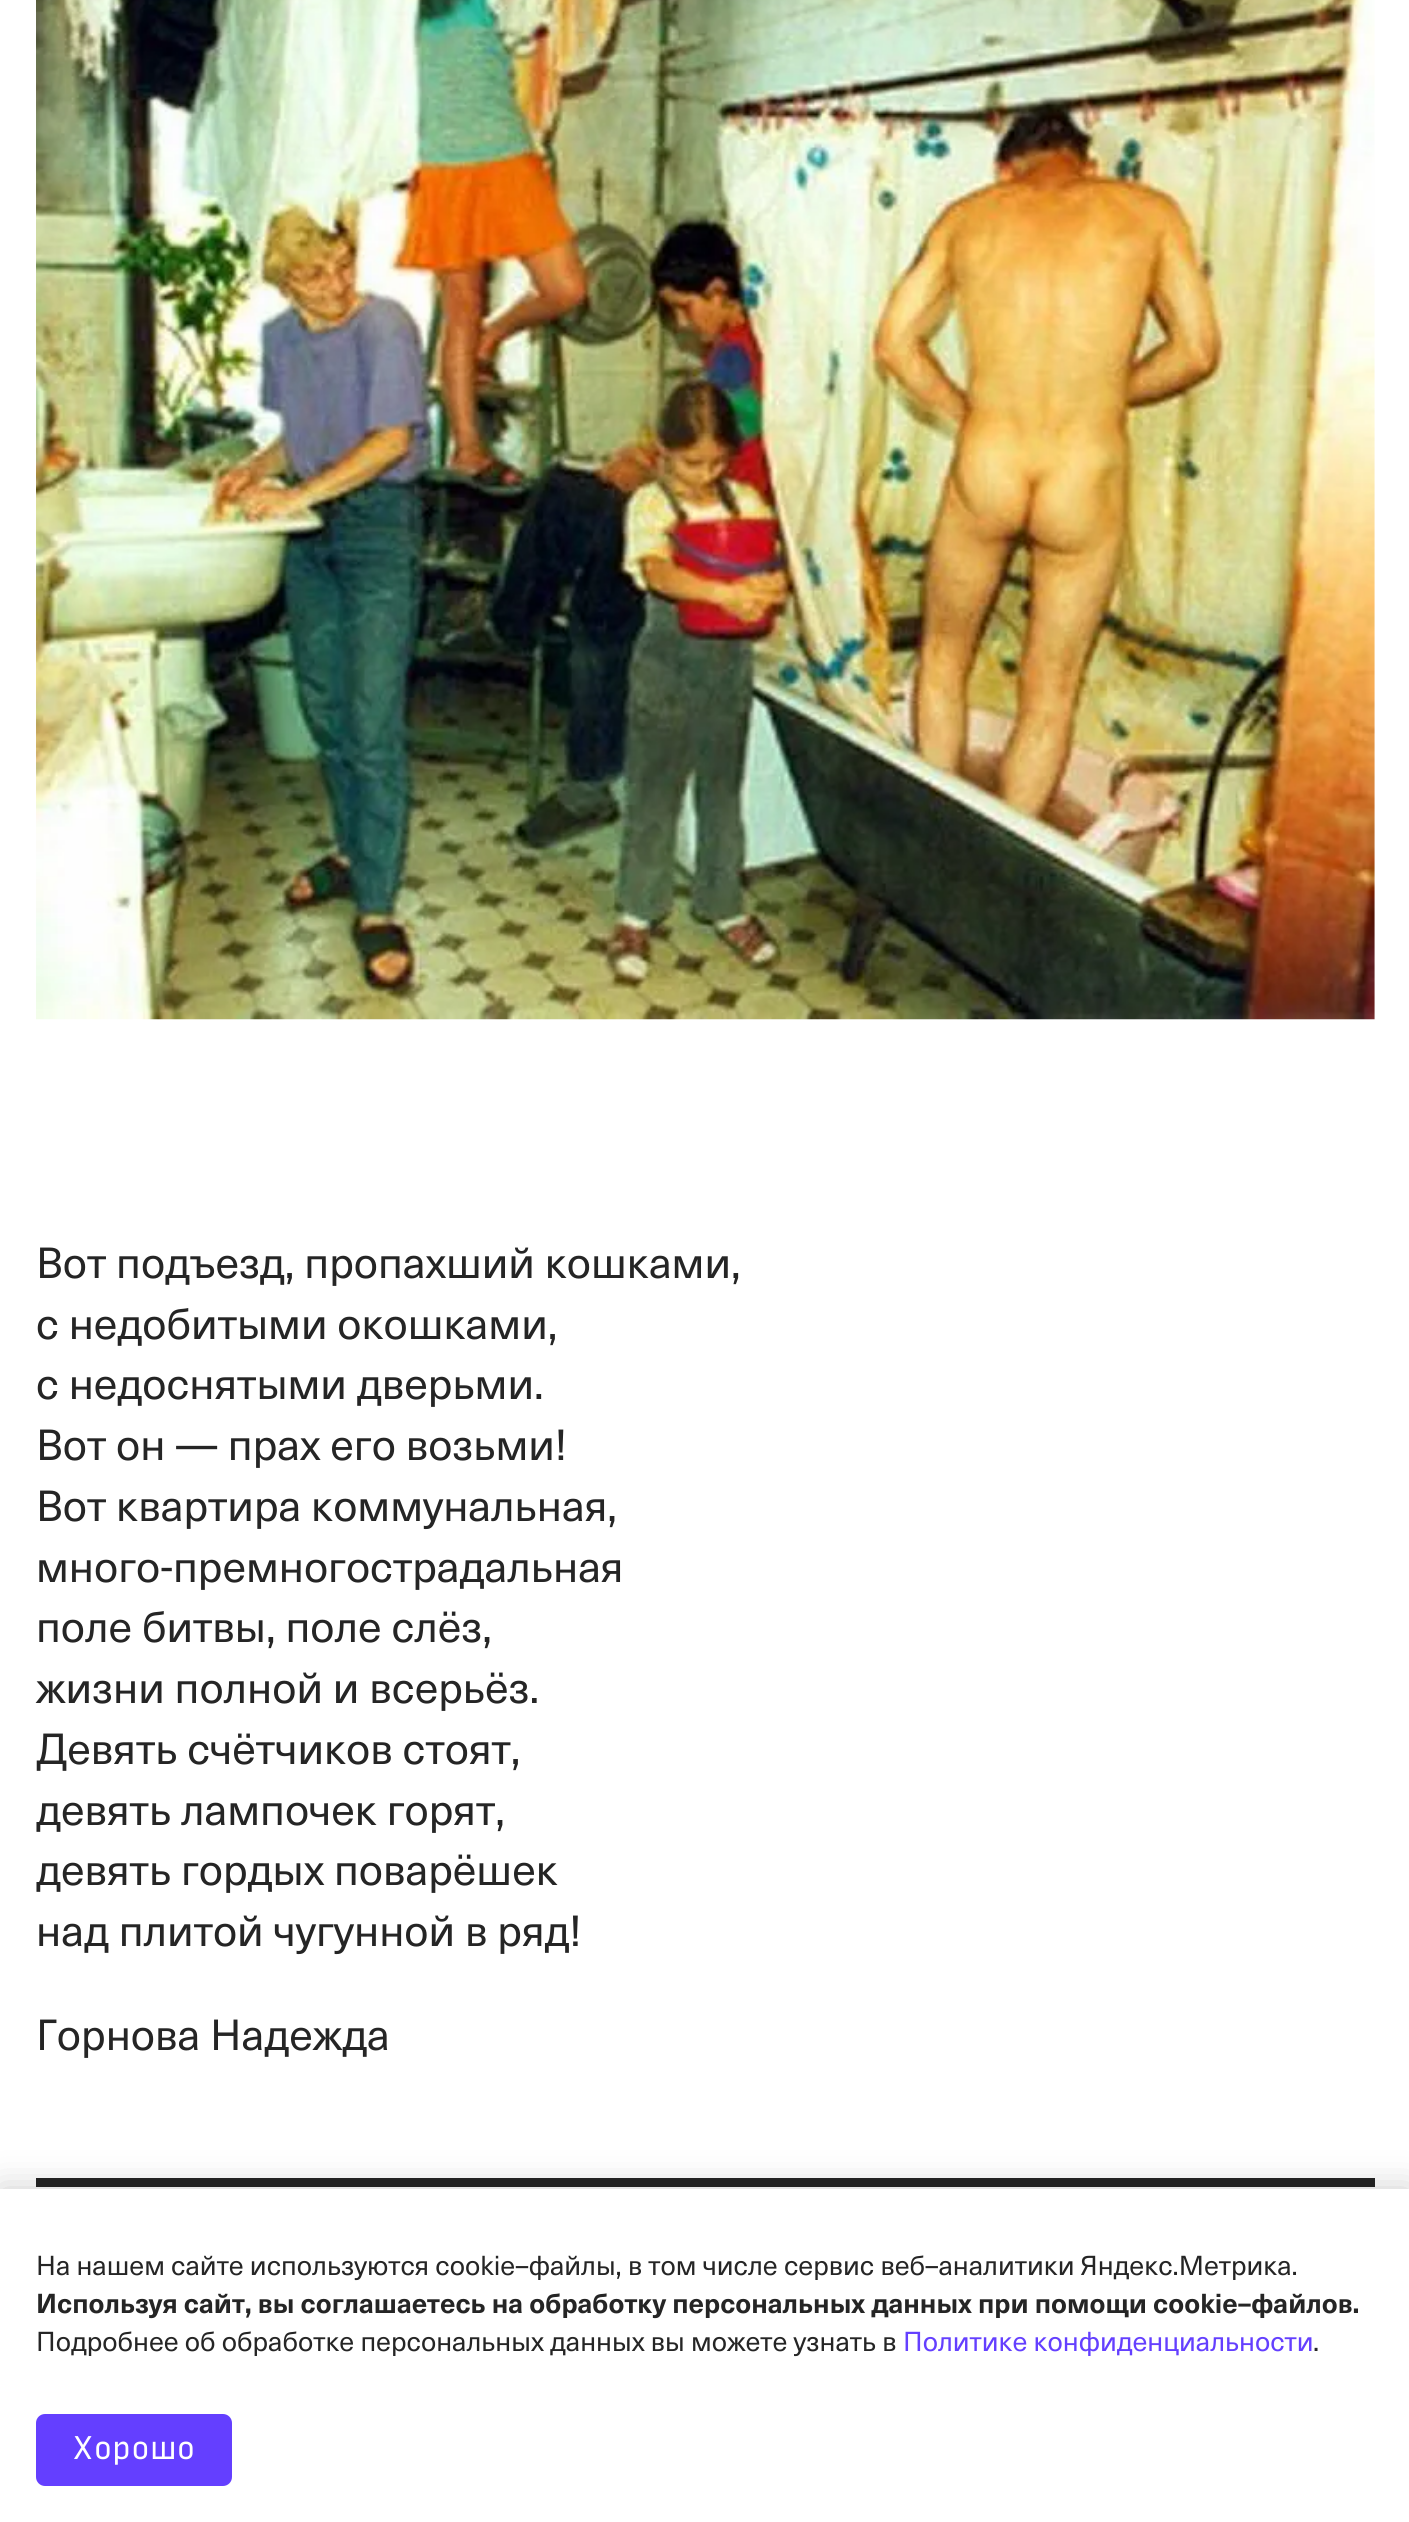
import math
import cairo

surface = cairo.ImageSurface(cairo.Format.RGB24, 1409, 2522)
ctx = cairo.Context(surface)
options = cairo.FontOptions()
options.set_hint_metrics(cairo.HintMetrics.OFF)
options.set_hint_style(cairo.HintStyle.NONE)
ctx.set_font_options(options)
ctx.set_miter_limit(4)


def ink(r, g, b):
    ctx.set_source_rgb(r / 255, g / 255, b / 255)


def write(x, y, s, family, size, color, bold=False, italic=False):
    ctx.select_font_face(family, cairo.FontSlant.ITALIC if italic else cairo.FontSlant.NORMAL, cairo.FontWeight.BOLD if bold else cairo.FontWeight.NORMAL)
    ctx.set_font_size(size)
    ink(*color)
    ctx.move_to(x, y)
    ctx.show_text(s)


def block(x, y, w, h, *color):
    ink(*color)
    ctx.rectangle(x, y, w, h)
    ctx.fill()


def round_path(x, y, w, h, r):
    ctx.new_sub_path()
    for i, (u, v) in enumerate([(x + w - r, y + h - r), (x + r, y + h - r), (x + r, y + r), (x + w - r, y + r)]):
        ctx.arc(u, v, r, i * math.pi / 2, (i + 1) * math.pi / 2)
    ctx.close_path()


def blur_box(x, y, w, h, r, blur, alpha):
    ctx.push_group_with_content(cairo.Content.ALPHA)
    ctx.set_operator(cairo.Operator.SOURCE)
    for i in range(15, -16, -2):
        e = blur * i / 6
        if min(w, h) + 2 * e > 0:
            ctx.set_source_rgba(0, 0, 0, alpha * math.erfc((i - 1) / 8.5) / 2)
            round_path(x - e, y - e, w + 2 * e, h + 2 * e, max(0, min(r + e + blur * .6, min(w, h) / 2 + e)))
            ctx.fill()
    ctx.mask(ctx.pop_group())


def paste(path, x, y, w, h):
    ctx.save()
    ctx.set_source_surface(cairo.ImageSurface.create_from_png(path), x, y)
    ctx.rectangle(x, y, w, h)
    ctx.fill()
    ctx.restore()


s1 = dict(family="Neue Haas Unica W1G", size=42.75, color=(37, 37, 37))
s2 = dict(family="Neue Haas Unica W1G", size=27, color=(37, 37, 37))
s3 = dict(family="Neue Haas Unica W1G", size=27, color=(37, 37, 37), bold=True)
s4 = dict(family="Neue Haas Unica W1G", size=27, color=(100, 63, 255))
s5 = dict(family="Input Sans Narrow", size=31.5, color=(255, 255, 255))

ink(255, 255, 255)
ctx.paint()
paste("pic1.png", 36, 0, 1339, 1020)
write(36, 1278, "Вот подъезд, пропахший кошками,", **s1)
write(36, 1339, "с недобитыми окошками,", **s1)
write(36, 1399, "с недоснятыми дверьми.", **s1)
write(36, 1460, "Вот он — прах его возьми!", **s1)
write(36, 1521, "Вот квартира коммунальная,", **s1)
write(36, 1582, "много-премногострадальная", **s1)
write(36, 1642, "поле битвы, поле слёз,", **s1)
write(36, 1703, "жизни полной и всерьёз.", **s1)
write(36, 1764, "Девять счётчиков стоят,", **s1)
write(36, 1825, "девять лампочек горят,", **s1)
write(36, 1885, "девять гордых поварёшек", **s1)
write(36, 1946, "над плитой чугунной в ряд!", **s1)
write(36, 2050, "Горнова Надежда", **s1)
block(36, 2178, 1339, 9, 37, 37, 37)
ink(0, 0, 0)
blur_box(0, 2189, 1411, 333, 0, 18, 0.2)
block(0, 2189, 1409, 333, 255, 255, 255)
write(36, 2275, "На нашем сайте используются cookie–файлы, в том числе сервис веб–аналитики Яндекс.Метрика.", **s2)
write(36, 2313, "Используя сайт, вы соглашаетесь на обработку персональных данных при помощи cookie–файлов.", **s3)
write(36, 2351, "Подробнее об обработке персональных данных вы можете узнать в", **s2)
write(903, 2351, "Политике конфиденциальности", **s4)
write(1313, 2351, ".", **s2)
ink(100, 63, 255)
round_path(36, 2414, 196, 72, 9)
ctx.fill()
write(72, 2459, "Хорошо", **s5)
surface.write_to_png("screenshot.png")
